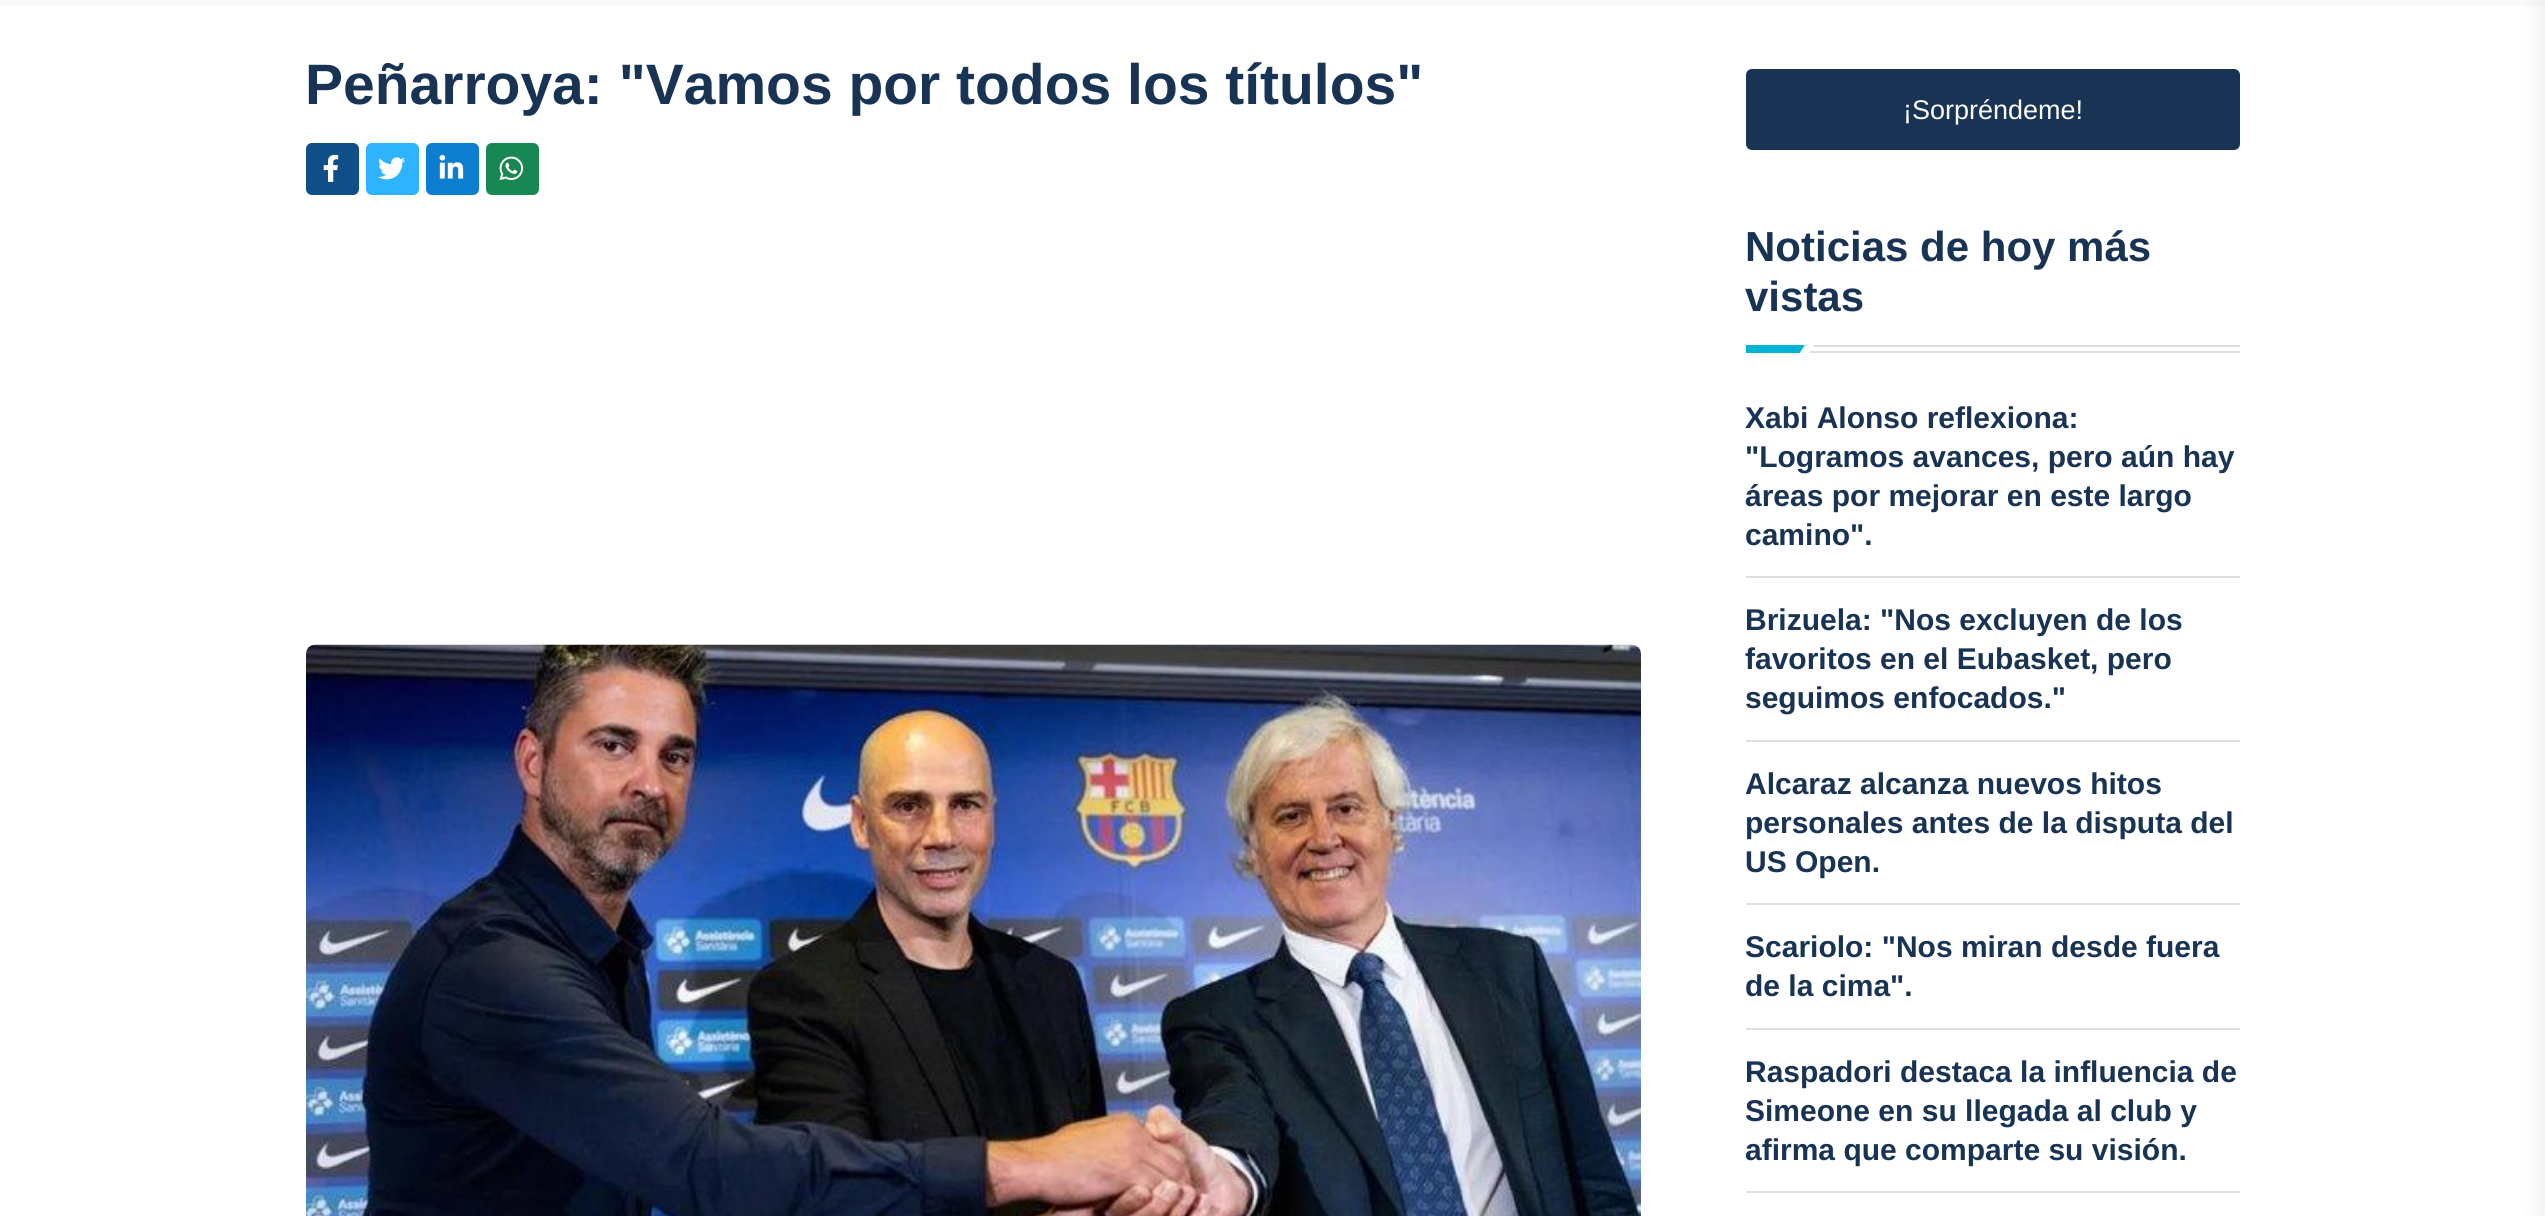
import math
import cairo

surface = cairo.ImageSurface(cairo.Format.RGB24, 2545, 1216)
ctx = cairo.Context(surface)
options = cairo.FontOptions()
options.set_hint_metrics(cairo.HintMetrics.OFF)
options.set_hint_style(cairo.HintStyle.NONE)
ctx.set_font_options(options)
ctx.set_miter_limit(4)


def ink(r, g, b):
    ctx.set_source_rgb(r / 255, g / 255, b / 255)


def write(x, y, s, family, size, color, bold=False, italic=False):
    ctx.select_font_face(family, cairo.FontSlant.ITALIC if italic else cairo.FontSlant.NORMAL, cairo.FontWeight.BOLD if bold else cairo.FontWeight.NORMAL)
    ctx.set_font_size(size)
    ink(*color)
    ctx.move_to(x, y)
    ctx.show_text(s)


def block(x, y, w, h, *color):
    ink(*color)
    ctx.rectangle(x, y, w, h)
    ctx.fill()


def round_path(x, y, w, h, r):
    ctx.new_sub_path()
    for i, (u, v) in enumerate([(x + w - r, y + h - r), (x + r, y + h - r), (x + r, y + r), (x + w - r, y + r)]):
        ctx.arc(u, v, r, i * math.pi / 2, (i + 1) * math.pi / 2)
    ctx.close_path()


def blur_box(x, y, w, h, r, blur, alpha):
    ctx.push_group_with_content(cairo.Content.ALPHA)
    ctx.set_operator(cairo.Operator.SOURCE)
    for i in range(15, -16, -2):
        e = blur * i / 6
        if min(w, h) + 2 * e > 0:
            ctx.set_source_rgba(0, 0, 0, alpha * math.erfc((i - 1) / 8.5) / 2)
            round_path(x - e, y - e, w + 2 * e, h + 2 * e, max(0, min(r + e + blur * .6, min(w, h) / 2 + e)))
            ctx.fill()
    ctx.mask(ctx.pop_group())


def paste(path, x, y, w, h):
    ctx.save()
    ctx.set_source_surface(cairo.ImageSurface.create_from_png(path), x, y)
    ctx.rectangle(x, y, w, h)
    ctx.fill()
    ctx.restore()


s1 = dict(family="Liberation Sans", size=57, color=(24, 51, 84), bold=True)
s2 = dict(family="Liberation Sans", size=27, color=(255, 255, 255))
s3 = dict(family="Liberation Sans", size=42, color=(24, 51, 84), bold=True)
s4 = dict(family="Liberation Sans", size=30, color=(24, 51, 84), bold=True)

ink(255, 255, 255)
ctx.paint()
block(0, 0, 2545, 6, 249, 249, 247)
write(305, 104, "Peñarroya: \"Vamos por todos los títulos\"", **s1)
ink(16, 78, 135)
round_path(306, 143, 53, 52, 6)
ctx.fill()
paste("pic1.png", 323, 154, 16, 28)
ink(46, 180, 255)
round_path(366, 143, 53, 52, 6)
ctx.fill()
paste("pic2.png", 378, 157, 27, 23)
ink(12, 126, 208)
round_path(426, 143, 53, 52, 6)
ctx.fill()
paste("pic3.png", 439, 154, 25, 25)
ink(25, 135, 84)
round_path(486, 143, 53, 52, 6)
ctx.fill()
paste("pic4.png", 499, 156, 25, 25)
paste("pic5.png", 306, 644, 1335, 572)
ink(24, 51, 84)
round_path(1746, 69, 494, 81, 6)
ctx.fill()
write(1903, 119, "¡Sorpréndeme!", **s2)
write(1745, 261, "Noticias de hoy más", **s3)
write(1745, 311, "vistas", **s3)
block(1812, 345, 428, 2, 223, 223, 223)
block(1808, 351, 432, 2, 223, 223, 223)
block(1746, 345, 60, 8, 0, 180, 216)
ink(255, 255, 255)
ctx.new_path()
ctx.move_to(1800, 352.5)
ctx.line_to(1805, 345)
ctx.line_to(1814, 345)
ctx.line_to(1808.5, 353.5)
ctx.line_to(1800, 353.5)
ctx.close_path()
ctx.fill()
block(1746, 576, 494, 2, 223, 223, 223)
write(1745, 428, "Xabi Alonso reflexiona:", **s4)
write(1745, 467, "\"Logramos avances, pero aún hay", **s4)
write(1745, 506, "áreas por mejorar en este largo", **s4)
write(1745, 545, "camino\".", **s4)
block(1746, 740, 494, 2, 223, 223, 223)
write(1745, 630, "Brizuela: \"Nos excluyen de los", **s4)
write(1745, 669, "favoritos en el Eubasket, pero", **s4)
write(1745, 708, "seguimos enfocados.\"", **s4)
block(1746, 903, 494, 2, 223, 223, 223)
write(1745, 794, "Alcaraz alcanza nuevos hitos", **s4)
write(1745, 833, "personales antes de la disputa del", **s4)
write(1745, 872, "US Open.", **s4)
block(1746, 1028, 494, 2, 223, 223, 223)
write(1745, 957, "Scariolo: \"Nos miran desde fuera", **s4)
write(1745, 996, "de la cima\".", **s4)
block(1746, 1191, 494, 2, 223, 223, 223)
write(1745, 1082, "Raspadori destaca la influencia de", **s4)
write(1745, 1121, "Simeone en su llegada al club y", **s4)
write(1745, 1160, "afirma que comparte su visión.", **s4)
ink(0, 0, 0)
blur_box(2537, 0, 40, 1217, 0, 10.5, 0.06)
surface.write_to_png("screenshot.png")
